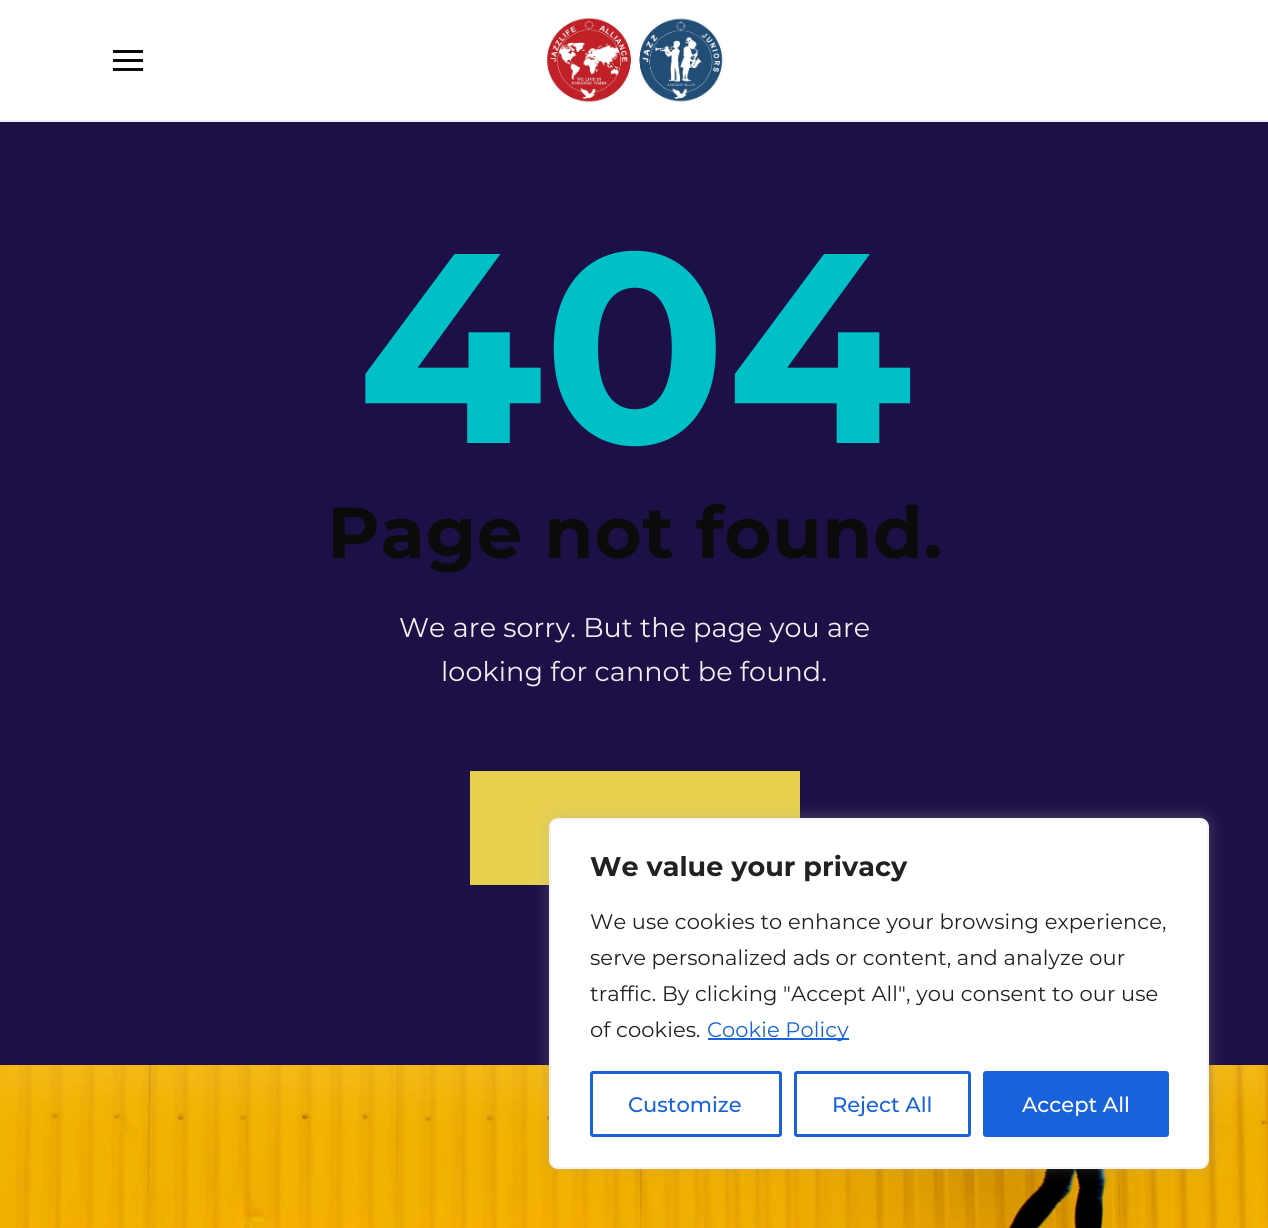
import math
import cairo

surface = cairo.ImageSurface(cairo.Format.RGB24, 1268, 1228)
ctx = cairo.Context(surface)
options = cairo.FontOptions()
options.set_hint_metrics(cairo.HintMetrics.OFF)
options.set_hint_style(cairo.HintStyle.NONE)
ctx.set_font_options(options)
ctx.set_miter_limit(4)


def ink(r, g, b):
    ctx.set_source_rgb(r / 255, g / 255, b / 255)


def write(x, y, s, family, size, color, bold=False, italic=False):
    ctx.select_font_face(family, cairo.FontSlant.ITALIC if italic else cairo.FontSlant.NORMAL, cairo.FontWeight.BOLD if bold else cairo.FontWeight.NORMAL)
    ctx.set_font_size(size)
    ink(*color)
    ctx.move_to(x, y)
    ctx.show_text(s)


def write_spaced(x, y, s, letter, word):
    ctx.move_to(x, y)
    for ch in s:
        ctx.show_text(ch)
        ctx.rel_move_to(letter + word * (ch == ' '), 0)


def block(x, y, w, h, *color):
    ink(*color)
    ctx.rectangle(x, y, w, h)
    ctx.fill()


def round_path(x, y, w, h, r):
    ctx.new_sub_path()
    for i, (u, v) in enumerate([(x + w - r, y + h - r), (x + r, y + h - r), (x + r, y + r), (x + w - r, y + r)]):
        ctx.arc(u, v, r, i * math.pi / 2, (i + 1) * math.pi / 2)
    ctx.close_path()


def blur_box(x, y, w, h, r, blur, alpha):
    ctx.push_group_with_content(cairo.Content.ALPHA)
    ctx.set_operator(cairo.Operator.SOURCE)
    for i in range(15, -16, -2):
        e = blur * i / 6
        if min(w, h) + 2 * e > 0:
            ctx.set_source_rgba(0, 0, 0, alpha * math.erfc((i - 1) / 8.5) / 2)
            round_path(x - e, y - e, w + 2 * e, h + 2 * e, max(0, min(r + e + blur * .6, min(w, h) / 2 + e)))
            ctx.fill()
    ctx.mask(ctx.pop_group())


def paste(path, x, y, w, h):
    ctx.save()
    ctx.set_source_surface(cairo.ImageSurface.create_from_png(path), x, y)
    ctx.rectangle(x, y, w, h)
    ctx.fill()
    ctx.restore()


s1 = dict(family="Montserrat Medium", size=21, color=(24, 99, 220))
s2 = dict(family="Montserrat Medium", size=21, color=(255, 255, 255))

ink(255, 255, 255)
ctx.paint()
paste("pic2.png", 0, 1065, 1268, 163)
blur_box(0, 23, 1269, 1065, 0, 22.5, 0.1)
block(0, 122, 1268, 943, 29, 16, 70)
block(0, 120, 1268, 2, 237, 237, 237)
block(113, 50, 30, 3, 10, 10, 10)
block(113, 59, 30, 3, 10, 10, 10)
block(113, 68, 30, 3, 10, 10, 10)
paste("pic1.png", 545, 17, 179, 86)
ctx.select_font_face("Montserrat", cairo.FontSlant.NORMAL, cairo.FontWeight.BOLD)
ctx.set_font_size(270)
ink(0, 192, 199)
write_spaced(357, 443, "404", 0.1, 0)
ctx.set_font_size(72)
ink(11, 11, 11)
write_spaced(327, 558, "Page not found.", 0.75, 0)
ctx.select_font_face("Montserrat")
ctx.set_font_size(27)
ink(239, 239, 239)
write_spaced(399, 637, "We are sorry. But the page you are", 0.1, 0)
write_spaced(441, 681, "looking for cannot be found.", 0.1, 0)
block(470, 771, 330, 114, 232, 209, 79)
ink(172, 171, 171)
blur_box(549, 816, 660, 351, 9, 7.5, 0.3)
ink(255, 255, 255)
round_path(550, 819, 658, 349, 8)
ctx.fill_preserve()
ink(244, 244, 244)
ctx.stroke()
ctx.select_font_face("Montserrat", cairo.FontSlant.NORMAL, cairo.FontWeight.BOLD)
ink(33, 33, 33)
write_spaced(590, 876, "We value your privacy", 0.1, 0)
ctx.select_font_face("Montserrat")
ctx.set_font_size(21)
write_spaced(590, 929, "We use cookies to enhance your browsing experience,", 0.1, 0)
write_spaced(590, 965, "serve personalized ads or content, and analyze our", 0.1, 0)
write_spaced(590, 1001, "traffic. By clicking \"Accept All\", you consent to our use", 0.1, 0)
write_spaced(590, 1037, "of cookies.", 0.1, 0)
block(708, 1038, 141, 2, 24, 99, 220)
write_spaced(707, 1037, "Cookie Policy", 0.1, 0)
round_path(591.5, 1072.5, 189, 63, 1.5)
ctx.set_line_width(3)
ctx.stroke()
write(628, 1112, "Customize", **s1)
round_path(795.5, 1072.5, 174, 63, 1.5)
ctx.stroke()
write(832, 1112, "Reject All", **s1)
round_path(984.5, 1072.5, 183, 63, 1.5)
ctx.fill_preserve()
ctx.stroke()
write(1022, 1112, "Accept All", **s2)
surface.write_to_png("screenshot.png")
